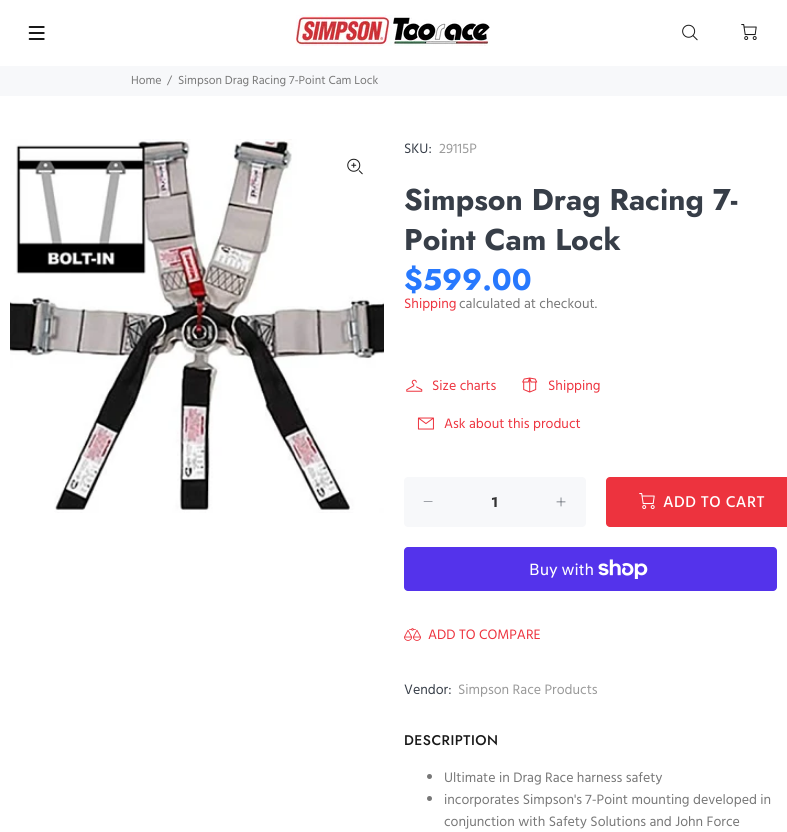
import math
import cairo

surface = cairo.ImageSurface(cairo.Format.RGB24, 787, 832)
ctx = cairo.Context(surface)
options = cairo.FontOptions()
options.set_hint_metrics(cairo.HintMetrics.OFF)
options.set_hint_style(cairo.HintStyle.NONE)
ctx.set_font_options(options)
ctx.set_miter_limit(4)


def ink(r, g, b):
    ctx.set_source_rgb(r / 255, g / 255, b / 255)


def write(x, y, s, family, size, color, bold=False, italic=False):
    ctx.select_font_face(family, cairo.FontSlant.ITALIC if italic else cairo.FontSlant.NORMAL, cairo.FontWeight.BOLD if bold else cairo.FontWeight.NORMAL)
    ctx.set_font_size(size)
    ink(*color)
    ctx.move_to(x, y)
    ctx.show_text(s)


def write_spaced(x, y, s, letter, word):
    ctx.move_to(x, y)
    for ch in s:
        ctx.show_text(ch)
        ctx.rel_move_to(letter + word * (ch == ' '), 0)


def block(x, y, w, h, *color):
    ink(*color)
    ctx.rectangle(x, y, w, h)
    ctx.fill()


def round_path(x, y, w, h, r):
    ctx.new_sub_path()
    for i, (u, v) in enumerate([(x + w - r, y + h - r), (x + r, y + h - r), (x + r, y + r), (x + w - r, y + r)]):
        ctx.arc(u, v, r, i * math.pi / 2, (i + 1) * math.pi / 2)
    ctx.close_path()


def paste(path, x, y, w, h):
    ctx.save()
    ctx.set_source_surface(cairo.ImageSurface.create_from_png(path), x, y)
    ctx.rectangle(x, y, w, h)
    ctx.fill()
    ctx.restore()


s1 = dict(family="Hind", size=12, color=(119, 119, 119))
s2 = dict(family="Hind", size=14, color=(55, 62, 72))
s3 = dict(family="Hind", size=14, color=(153, 153, 153))
s4 = dict(family="Jost", size=30, color=(55, 62, 72), bold=True)
s5 = dict(family="Jost", size=30, color=(40, 121, 254), bold=True)
s6 = dict(family="Hind", size=14, color=(237, 51, 62))
s7 = dict(family="Hind", size=14, color=(119, 119, 119))
s8 = dict(family="Jost", size=14, color=(51, 51, 51), bold=True)
s9 = dict(family="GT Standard", size=16, color=(255, 255, 255))

ink(255, 255, 255)
ctx.paint()
paste("pic1.png", 28, 26, 17, 14)
paste("pic2.png", 296, 15, 194, 31)
paste("pic3.png", 682, 24, 16, 17)
paste("pic4.png", 741, 24, 16, 16)
block(0, 66, 787, 30, 247, 248, 250)
write(131, 84, "Home", **s1)
write(167, 84, "/", **s1)
write(178, 84, "Simpson Drag Racing 7-Point Cam Lock", **s1)
paste("pic5.png", 10, 139, 374, 374)
paste("pic6.png", 347, 158, 16, 17)
write(404, 153, "SKU:", **s2)
write(439, 153, "29115P", **s3)
write(404, 210, "Simpson Drag Racing 7-", **s4)
write(404, 250, "Point Cam Lock", **s4)
write(404, 290, "$599.00", **s5)
write(404, 308, "Shipping", **s6)
write(459, 308, "calculated at checkout.", **s7)
paste("pic7.png", 406, 379, 17, 13)
write(432, 390, "Size charts", **s6)
paste("pic8.png", 522, 377, 16, 16)
write(548, 390, "Shipping", **s6)
paste("pic9.png", 417, 417, 17, 13)
write(444, 428, "Ask about this product", **s6)
ink(247, 248, 250)
round_path(404, 477, 182, 50, 4)
ctx.fill()
ink(55, 62, 72)
ctx.new_path()
ctx.move_to(432.5, 501.5)
ctx.line_to(432.5, 502)
ctx.line_to(423.5, 502)
ctx.line_to(424, 501.5)
ctx.close_path()
ctx.fill()
write(491, 507, "1", **s8)
paste("pic10.png", 556, 497, 10, 10)
ink(237, 51, 62)
round_path(606, 477, 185, 50, 4)
ctx.fill()
paste("pic11.png", 639, 493, 16, 16)
ctx.select_font_face("Hind Medium")
ctx.set_font_size(16)
ink(255, 255, 255)
write_spaced(663, 507, "ADD TO CART", 0.5, 0)
ink(84, 51, 235)
round_path(404, 547, 373, 44, 4)
ctx.fill()
write(529, 575, "Buy with", **s9)
paste("pic12.png", 598, 559, 50, 20)
paste("pic13.png", 404, 628, 17, 13)
write(428, 639, "ADD TO COMPARE", **s6)
write(404, 694, "Vendor:", **s2)
write(458, 694, "Simpson Race Products", **s3)
ctx.select_font_face("Jost Medium")
ink(25, 25, 25)
write_spaced(404, 745, "DESCRIPTION", 0.5, 0)
ink(119, 119, 119)
ctx.new_path()
ctx.arc(429.5, 776.5, 2.5, 0, 2 * math.pi)
ctx.fill()
write(444, 782, "Ultimate in Drag Race harness safety", **s7)
ctx.new_path()
ctx.arc(429.5, 798.5, 2.5, 0, 2 * math.pi)
ctx.fill()
write(444, 804, "incorporates Simpson's 7-Point mounting developed in", **s7)
write(444, 826, "conjunction with Safety Solutions and John Force", **s7)
surface.write_to_png("screenshot.png")
